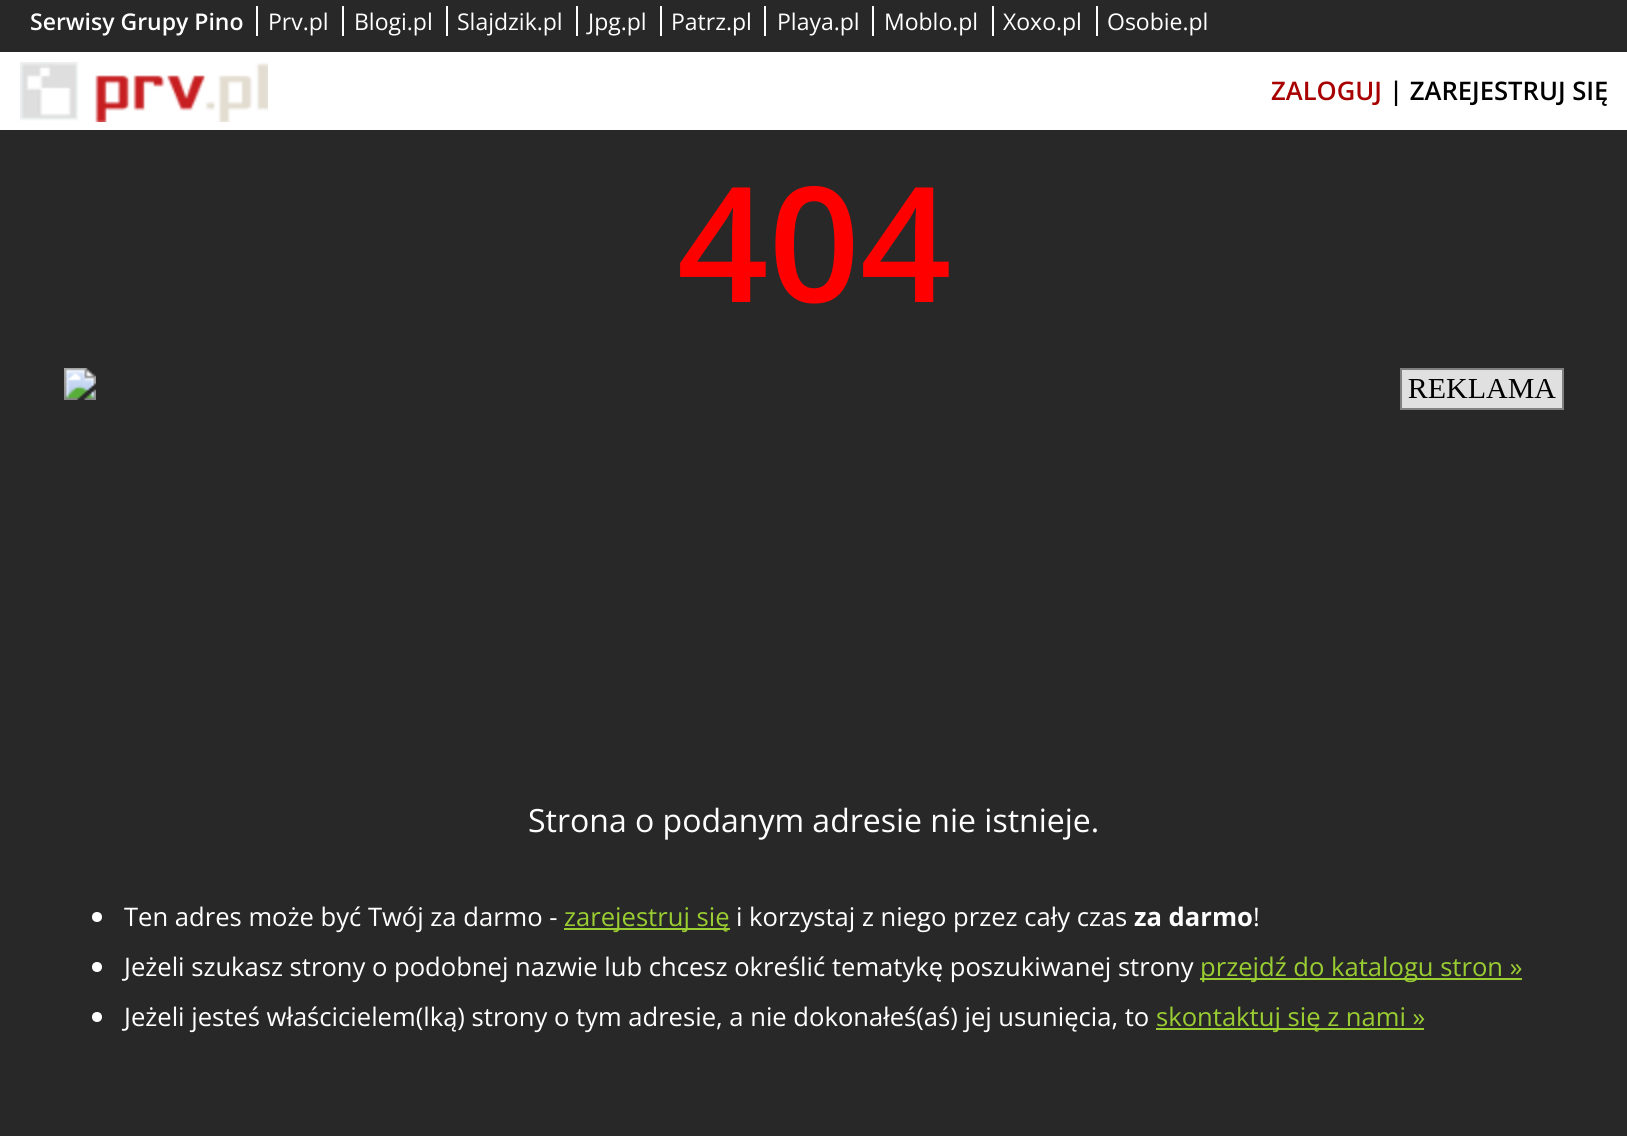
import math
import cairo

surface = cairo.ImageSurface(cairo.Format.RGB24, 1627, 1145)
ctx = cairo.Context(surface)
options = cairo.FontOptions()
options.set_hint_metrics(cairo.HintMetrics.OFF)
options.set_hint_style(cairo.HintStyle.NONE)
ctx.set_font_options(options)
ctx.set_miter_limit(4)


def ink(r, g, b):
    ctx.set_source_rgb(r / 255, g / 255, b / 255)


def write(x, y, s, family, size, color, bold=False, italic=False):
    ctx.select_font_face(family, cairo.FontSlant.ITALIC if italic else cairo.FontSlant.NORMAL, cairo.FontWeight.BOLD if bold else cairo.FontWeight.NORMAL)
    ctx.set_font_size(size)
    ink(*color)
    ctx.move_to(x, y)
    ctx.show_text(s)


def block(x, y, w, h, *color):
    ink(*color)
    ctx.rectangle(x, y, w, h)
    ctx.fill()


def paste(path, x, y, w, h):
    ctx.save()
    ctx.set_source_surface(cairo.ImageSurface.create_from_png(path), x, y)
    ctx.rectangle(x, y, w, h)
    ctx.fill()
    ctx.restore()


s1 = dict(family="Open Sans SemiBold", size=23, color=(255, 255, 255))
s2 = dict(family="Open Sans", size=23, color=(255, 255, 255))
s3 = dict(family="Open Sans SemiBold", size=25.6, color=(168, 0, 0))
s4 = dict(family="Open Sans SemiBold", size=25.6, color=(0, 0, 0))
s5 = dict(family="Open Sans SemiBold", size=160, color=(255, 0, 0))
s6 = dict(family="Open Sans", size=32, color=(255, 255, 255))
s7 = dict(family="Open Sans", size=25.6, color=(255, 255, 255))
s8 = dict(family="Open Sans", size=25.6, color=(154, 205, 50))
s9 = dict(family="Open Sans", size=25.6, color=(255, 255, 255), bold=True)

ink(255, 255, 255)
ctx.paint()
block(0, 0, 1627, 52, 40, 40, 40)
write(30, 30, "Serwisy Grupy Pino", **s1)
block(256, 6, 2, 30, 255, 255, 255)
write(268, 30, "Prv.pl", **s2)
block(342, 6, 2, 30, 255, 255, 255)
write(354, 30, "Blogi.pl", **s2)
block(446, 6, 2, 30, 255, 255, 255)
write(457, 30, "Slajdzik.pl", **s2)
block(576, 6, 2, 30, 255, 255, 255)
write(588, 30, "Jpg.pl", **s2)
block(660, 6, 2, 30, 255, 255, 255)
write(671, 30, "Patrz.pl", **s2)
block(764, 6, 2, 30, 255, 255, 255)
write(777, 30, "Playa.pl", **s2)
block(872, 6, 2, 30, 255, 255, 255)
write(884, 30, "Moblo.pl", **s2)
block(992, 6, 2, 30, 255, 255, 255)
write(1003, 30, "Xoxo.pl", **s2)
block(1096, 6, 2, 30, 255, 255, 255)
write(1107, 30, "Osobie.pl", **s2)
paste("pic1.png", 20, 62, 248, 60)
write(1271, 100, "ZALOGUJ", **s3)
write(1389, 100, "| ZAREJESTRUJ SIĘ", **s4)
block(0, 130, 1627, 1006, 40, 40, 40)
write(677, 302, "404", **s5)
paste("pic2.png", 64, 368, 1500, 42)
write(528, 832, "Strona o podanym adresie nie istnieje.", **s6)
ctx.new_path()
ctx.arc(97, 917, 5, 0, 2 * math.pi)
ctx.fill()
write(124, 926, "Ten adres może być Twój za darmo -", **s7)
block(564, 928, 166, 2, 154, 205, 50)
write(564, 926, "zarejestruj się", **s8)
write(736, 926, "i korzystaj z niego przez cały czas", **s7)
write(1134, 926, "za darmo", **s9)
write(1253, 926, "!", **s7)
ctx.new_path()
ctx.arc(97, 967, 5, 0, 2 * math.pi)
ctx.fill()
write(124, 976, "Jeżeli szukasz strony o podobnej nazwie lub chcesz określić tematykę poszukiwanej strony", **s7)
block(1200, 978, 322, 2, 154, 205, 50)
write(1200, 976, "przejdź do katalogu stron »", **s8)
ink(255, 255, 255)
ctx.new_path()
ctx.arc(97, 1017, 5, 0, 2 * math.pi)
ctx.fill()
write(124, 1026, "Jeżeli jesteś właścicielem(lką) strony o tym adresie, a nie dokonałeś(aś) jej usunięcia, to", **s7)
block(1156, 1028, 268, 2, 154, 205, 50)
write(1156, 1026, "skontaktuj się z nami »", **s8)
surface.write_to_png("screenshot.png")
